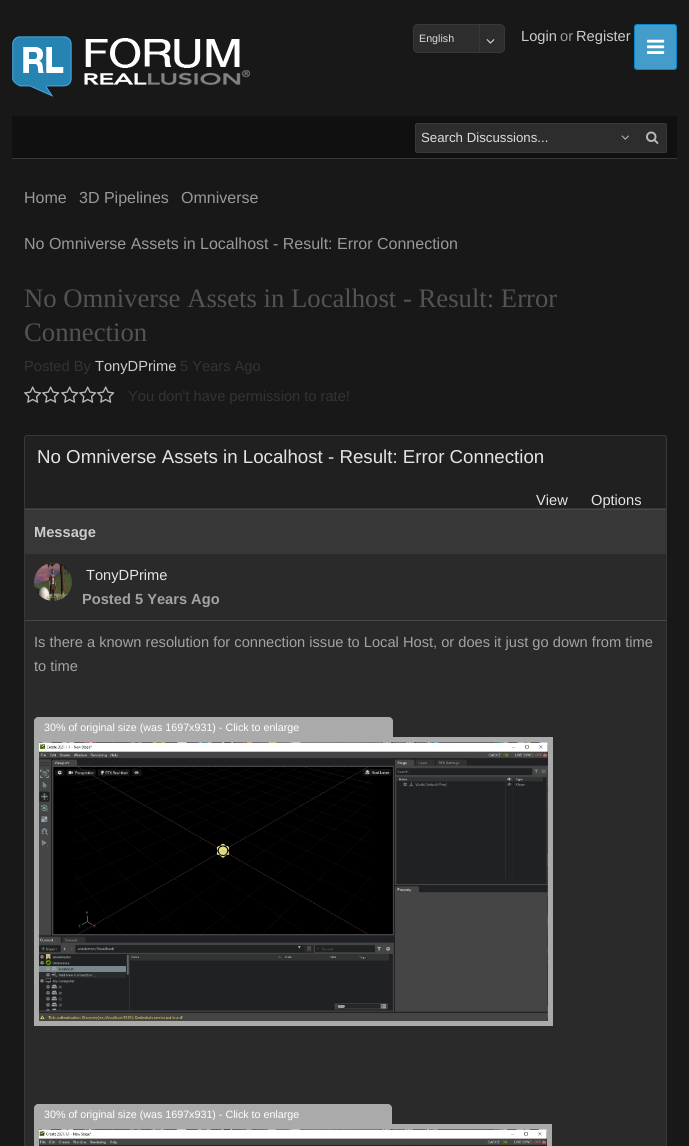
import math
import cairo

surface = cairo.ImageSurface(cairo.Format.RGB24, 689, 1146)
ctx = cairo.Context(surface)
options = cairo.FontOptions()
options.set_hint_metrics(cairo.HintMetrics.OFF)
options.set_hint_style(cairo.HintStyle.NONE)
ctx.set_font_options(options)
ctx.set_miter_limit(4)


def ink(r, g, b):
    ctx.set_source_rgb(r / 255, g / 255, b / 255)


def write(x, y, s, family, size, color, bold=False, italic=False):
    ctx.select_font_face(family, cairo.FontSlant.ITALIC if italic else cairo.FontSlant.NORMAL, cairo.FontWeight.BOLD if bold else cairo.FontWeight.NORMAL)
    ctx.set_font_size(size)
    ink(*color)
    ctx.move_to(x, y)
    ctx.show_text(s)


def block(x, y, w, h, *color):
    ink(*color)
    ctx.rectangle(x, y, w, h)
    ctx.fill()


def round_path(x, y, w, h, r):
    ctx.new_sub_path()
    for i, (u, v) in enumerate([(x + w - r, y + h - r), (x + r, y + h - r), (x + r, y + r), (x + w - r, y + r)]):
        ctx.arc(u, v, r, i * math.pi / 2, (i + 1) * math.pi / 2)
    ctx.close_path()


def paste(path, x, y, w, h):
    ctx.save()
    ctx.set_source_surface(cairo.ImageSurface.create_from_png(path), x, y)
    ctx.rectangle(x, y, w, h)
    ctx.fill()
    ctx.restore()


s1 = dict(family="Liberation Sans", size=10.7, color=(221, 221, 221))
s2 = dict(family="Liberation Sans", size=14.65, color=(204, 204, 204))
s3 = dict(family="Liberation Sans", size=14.65, color=(153, 153, 153))
s4 = dict(family="Liberation Sans", size=13.25, color=(221, 221, 221))
s5 = dict(family="Liberation Sans", size=16, color=(153, 153, 153))
s6 = dict(family="Liberation Serif", size=26.7, color=(83, 83, 83))
s7 = dict(family="Liberation Sans", size=14.65, color=(51, 51, 51))
s8 = dict(family="Liberation Sans", size=18.7, color=(228, 228, 228))
s9 = dict(family="Liberation Sans", size=14.65, color=(228, 228, 228))
s10 = dict(family="Liberation Sans", size=14.65, color=(204, 204, 204), bold=True)
s11 = dict(family="Liberation Sans", size=14.65, color=(163, 163, 163), bold=True)
s12 = dict(family="Liberation Sans", size=14.65, color=(163, 163, 163))
s13 = dict(family="Liberation Sans", size=10.7, color=(255, 255, 255))

ink(24, 24, 24)
ctx.paint()
paste("pic1.png", 12, 36, 238, 61)
ink(45, 45, 45)
round_path(413.5, 24.5, 91, 28, 4.5)
ctx.fill_preserve()
ink(56, 56, 56)
ctx.set_line_width(1)
ctx.stroke()
write(419, 42, "English", **s1)
block(479, 25, 1, 27, 56, 56, 56)
paste("pic2.png", 486, 39, 9, 5)
write(521, 41, "Login", **s2)
write(560, 41, "or", **s3)
write(576, 41, "Register", **s2)
ink(67, 156, 202)
round_path(634.5, 24.5, 42, 45, 2.5)
ctx.fill_preserve()
ink(6, 135, 202)
ctx.stroke()
paste("pic3.png", 647, 39, 18, 15)
block(12, 116, 665, 42, 16, 16, 16)
block(12, 158, 665, 1, 56, 56, 56)
ink(45, 45, 45)
round_path(415.5, 123.5, 251, 29, 1.5)
ctx.fill_preserve()
ink(56, 56, 56)
ctx.stroke()
write(421, 142, "Search Discussions...", **s4)
paste("pic4.png", 621, 135, 8, 5)
paste("pic5.png", 646, 131, 13, 13)
write(24, 203, "Home", **s5)
write(79, 203, "3D Pipelines", **s5)
write(181, 203, "Omniverse", **s5)
write(24, 249, "No Omniverse Assets in Localhost - Result: Error Connection", **s5)
write(24, 307, "No Omniverse Assets in Localhost - Result: Error", **s6)
write(24, 341, "Connection", **s6)
write(24, 371, "Posted By", **s7)
write(95, 371, "TonyDPrime", **s2)
write(180, 371, "5 Years Ago", **s7)
paste("pic6.png", 24, 386, 18, 17)
paste("pic6.png", 42, 386, 18, 17)
paste("pic6.png", 61, 386, 18, 17)
paste("pic6.png", 79, 386, 18, 17)
paste("pic6.png", 97, 386, 18, 17)
write(128, 401, "You don't have permission to rate!", **s7)
ink(32, 32, 32)
ctx.new_path()
ctx.move_to(27, 435.5)
ctx.line_to(664, 435.5)
ctx.curve_to(665.5, 435.5, 666.5, 436.5, 666.5, 438)
ctx.line_to(666.5, 508.5)
ctx.line_to(24.5, 508.5)
ctx.line_to(24.5, 438)
ctx.curve_to(24.5, 436.5, 25.5, 435.5, 27, 435.5)
ctx.close_path()
ctx.fill_preserve()
ink(56, 56, 56)
ctx.stroke()
write(37, 463, "No Omniverse Assets in Localhost - Result: Error Connection", **s8)
write(536, 505, "View", **s9)
write(591, 505, "Options", **s9)
block(666, 509, 1, 637, 56, 56, 56)
block(24, 509, 1, 637, 56, 56, 56)
block(25, 510, 641, 44, 55, 55, 55)
block(25, 509, 641, 1, 72, 72, 72)
write(34, 537, "Message", **s10)
block(25, 554, 641, 66, 42, 42, 42)
paste("pic7.png", 34, 563, 38, 38)
write(86, 580, "TonyDPrime", **s9)
write(82, 604, "Posted 5 Years Ago", **s11)
block(25, 621, 641, 525, 42, 42, 42)
block(25, 620, 641, 1, 72, 72, 72)
write(34, 647, "Is there a known resolution for connection issue to Local Host, or does it just go down from time", **s12)
write(34, 671, "to time", **s12)
ink(170, 170, 170)
ctx.new_path()
ctx.move_to(38, 717)
ctx.line_to(389, 717)
ctx.curve_to(391, 717, 393, 719, 393, 721)
ctx.line_to(393, 737)
ctx.line_to(34, 737)
ctx.line_to(34, 721)
ctx.curve_to(34, 719, 36, 717, 38, 717)
ctx.close_path()
ctx.fill()
write(44, 731, "30% of original size (was 1697x931) - Click to enlarge", **s13)
block(34, 737, 519, 289, 170, 170, 170)
paste("pic8.png", 39, 742, 509, 279)
ctx.new_path()
ctx.move_to(38, 1104)
ctx.line_to(388, 1104)
ctx.curve_to(390, 1104, 392, 1106, 392, 1108)
ctx.line_to(392, 1124)
ctx.line_to(34, 1124)
ctx.line_to(34, 1108)
ctx.curve_to(34, 1106, 36, 1104, 38, 1104)
ctx.close_path()
ctx.fill()
write(44, 1118, "30% of original size (was 1697x931) - Click to enlarge", **s13)
block(34, 1124, 518, 22, 170, 170, 170)
paste("pic9.png", 39, 1129, 508, 17)
surface.write_to_png("screenshot.png")
